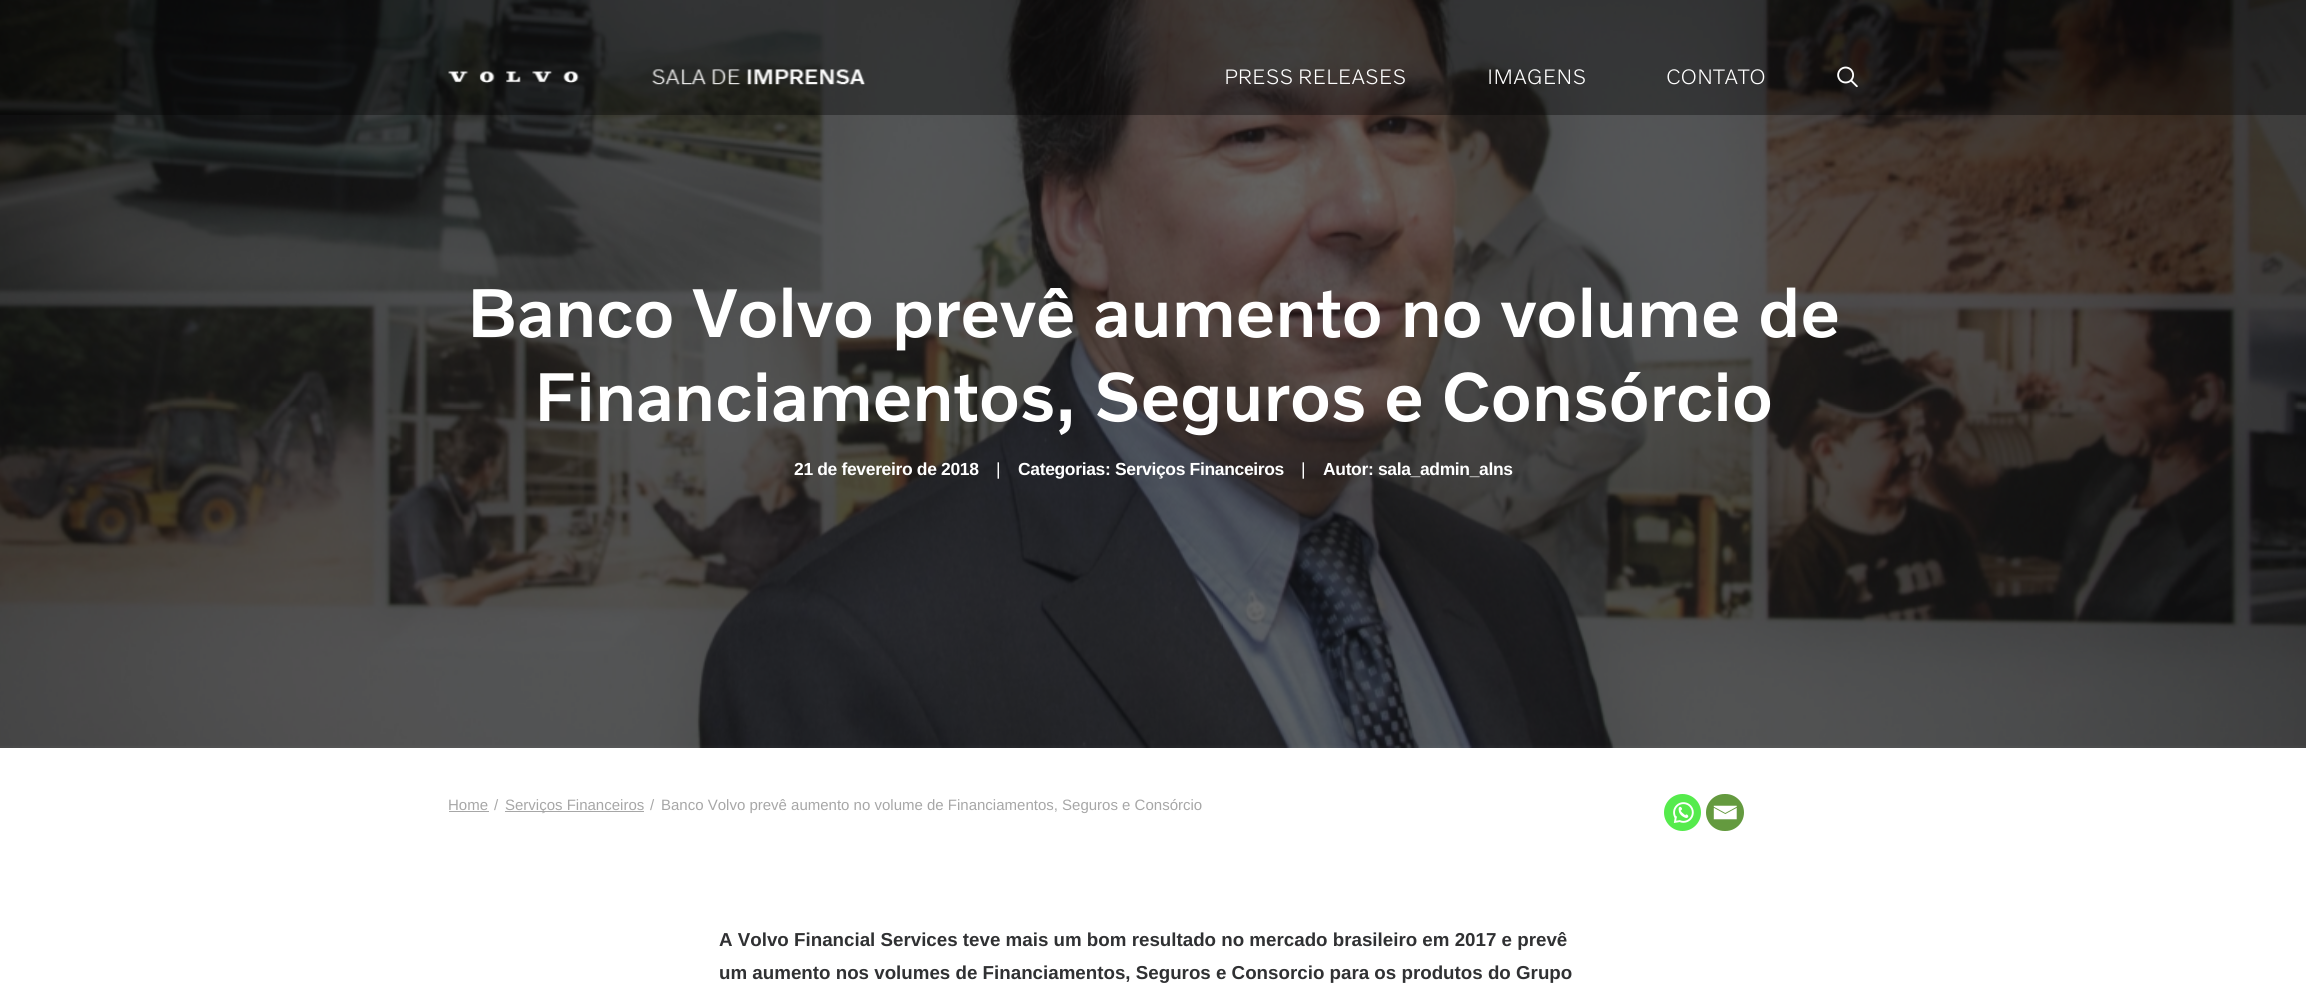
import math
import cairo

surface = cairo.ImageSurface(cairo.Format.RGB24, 2306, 996)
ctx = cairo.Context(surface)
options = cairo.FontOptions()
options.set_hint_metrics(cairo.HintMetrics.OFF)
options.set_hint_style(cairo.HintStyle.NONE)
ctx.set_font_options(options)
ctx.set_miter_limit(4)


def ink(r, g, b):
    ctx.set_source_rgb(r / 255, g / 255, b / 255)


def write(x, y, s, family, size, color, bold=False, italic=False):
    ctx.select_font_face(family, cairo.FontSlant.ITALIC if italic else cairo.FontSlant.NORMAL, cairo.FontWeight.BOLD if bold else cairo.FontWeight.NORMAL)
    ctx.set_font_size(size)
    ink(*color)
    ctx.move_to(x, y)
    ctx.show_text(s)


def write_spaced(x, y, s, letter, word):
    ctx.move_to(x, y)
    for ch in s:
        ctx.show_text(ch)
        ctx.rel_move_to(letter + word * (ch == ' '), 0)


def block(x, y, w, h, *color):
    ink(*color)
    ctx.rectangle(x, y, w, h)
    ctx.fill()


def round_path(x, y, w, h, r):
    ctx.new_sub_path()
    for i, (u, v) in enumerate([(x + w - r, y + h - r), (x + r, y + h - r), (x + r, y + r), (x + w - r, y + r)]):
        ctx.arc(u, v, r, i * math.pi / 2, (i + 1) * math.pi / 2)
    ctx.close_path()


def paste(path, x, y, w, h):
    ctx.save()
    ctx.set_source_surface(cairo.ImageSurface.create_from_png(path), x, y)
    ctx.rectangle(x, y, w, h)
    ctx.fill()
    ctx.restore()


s1 = dict(family="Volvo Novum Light", size=21.25, color=(255, 255, 255))
s2 = dict(family="Volvo Novum Medium", size=70, color=(255, 255, 255))
s3 = dict(family="Liberation Sans", size=15, color=(167, 167, 167))
s4 = dict(family="Liberation Sans", size=18.75, color=(48, 49, 51), bold=True)

ink(255, 255, 255)
ctx.paint()
paste("pic3.png", 0, 0, 2306, 748)
ctx.set_source_rgba(0, 0, 0, 0.35)
ctx.rectangle(0, 0, 2306, 115)
ctx.fill()
paste("pic1.png", 448, 69, 418, 16)
ctx.select_font_face("Volvo Novum Light")
ctx.set_font_size(21.25)
ink(255, 255, 255)
write_spaced(1224, 84, "PRESS RELEASES", 0, -1)
write(1487, 84, "IMAGENS", **s1)
write(1666, 84, "CONTATO", **s1)
paste("pic2.png", 1837, 66, 21, 22)
write(467, 337, "Banco Volvo prevê aumento no volume de", **s2)
write(534, 421, "Financiamentos, Seguros e Consórcio", **s2)
ctx.select_font_face("Liberation Sans", cairo.FontSlant.NORMAL, cairo.FontWeight.BOLD)
ctx.set_font_size(17.5)
write_spaced(794, 475, "21 de fevereiro de 2018", -0.35, 0)
ctx.select_font_face("Liberation Sans")
write_spaced(996, 475, "|", -0.35, 0)
ctx.select_font_face("Liberation Sans", cairo.FontSlant.NORMAL, cairo.FontWeight.BOLD)
write_spaced(1018, 475, "Categorias: Serviços Financeiros", -0.35, 0)
ctx.select_font_face("Liberation Sans")
write_spaced(1301, 475, "|", -0.35, 0)
ctx.select_font_face("Liberation Sans", cairo.FontSlant.NORMAL, cairo.FontWeight.BOLD)
write_spaced(1323, 475, "Autor: sala_admin_alns", -0.35, 0)
write(448, 810, "Home", **s3)
block(449, 811, 40, 1, 167, 167, 167)
write(494, 810, "/", **s3)
block(505, 811, 139, 1, 167, 167, 167)
write(505, 810, "Serviços Financeiros", **s3)
write(650, 810, "/", **s3)
write(661, 810, "Banco Volvo prevê aumento no volume de Financiamentos, Seguros e Consórcio", **s3)
ink(85, 235, 76)
ctx.new_path()
ctx.arc(1682.5, 812.5, 18.5, 0, 2 * math.pi)
ctx.fill()
paste("pic4.png", 1673, 802, 21, 21)
ink(100, 154, 63)
round_path(1706, 794, 38, 37, 18.5)
ctx.fill()
paste("pic5.png", 1713, 805, 24, 15)
write(719, 946, "A Volvo Financial Services teve mais um bom resultado no mercado brasileiro em 2017 e prevê", **s4)
write(719, 979, "um aumento nos volumes de Financiamentos, Seguros e Consorcio para os produtos do Grupo", **s4)
surface.write_to_png("screenshot.png")
